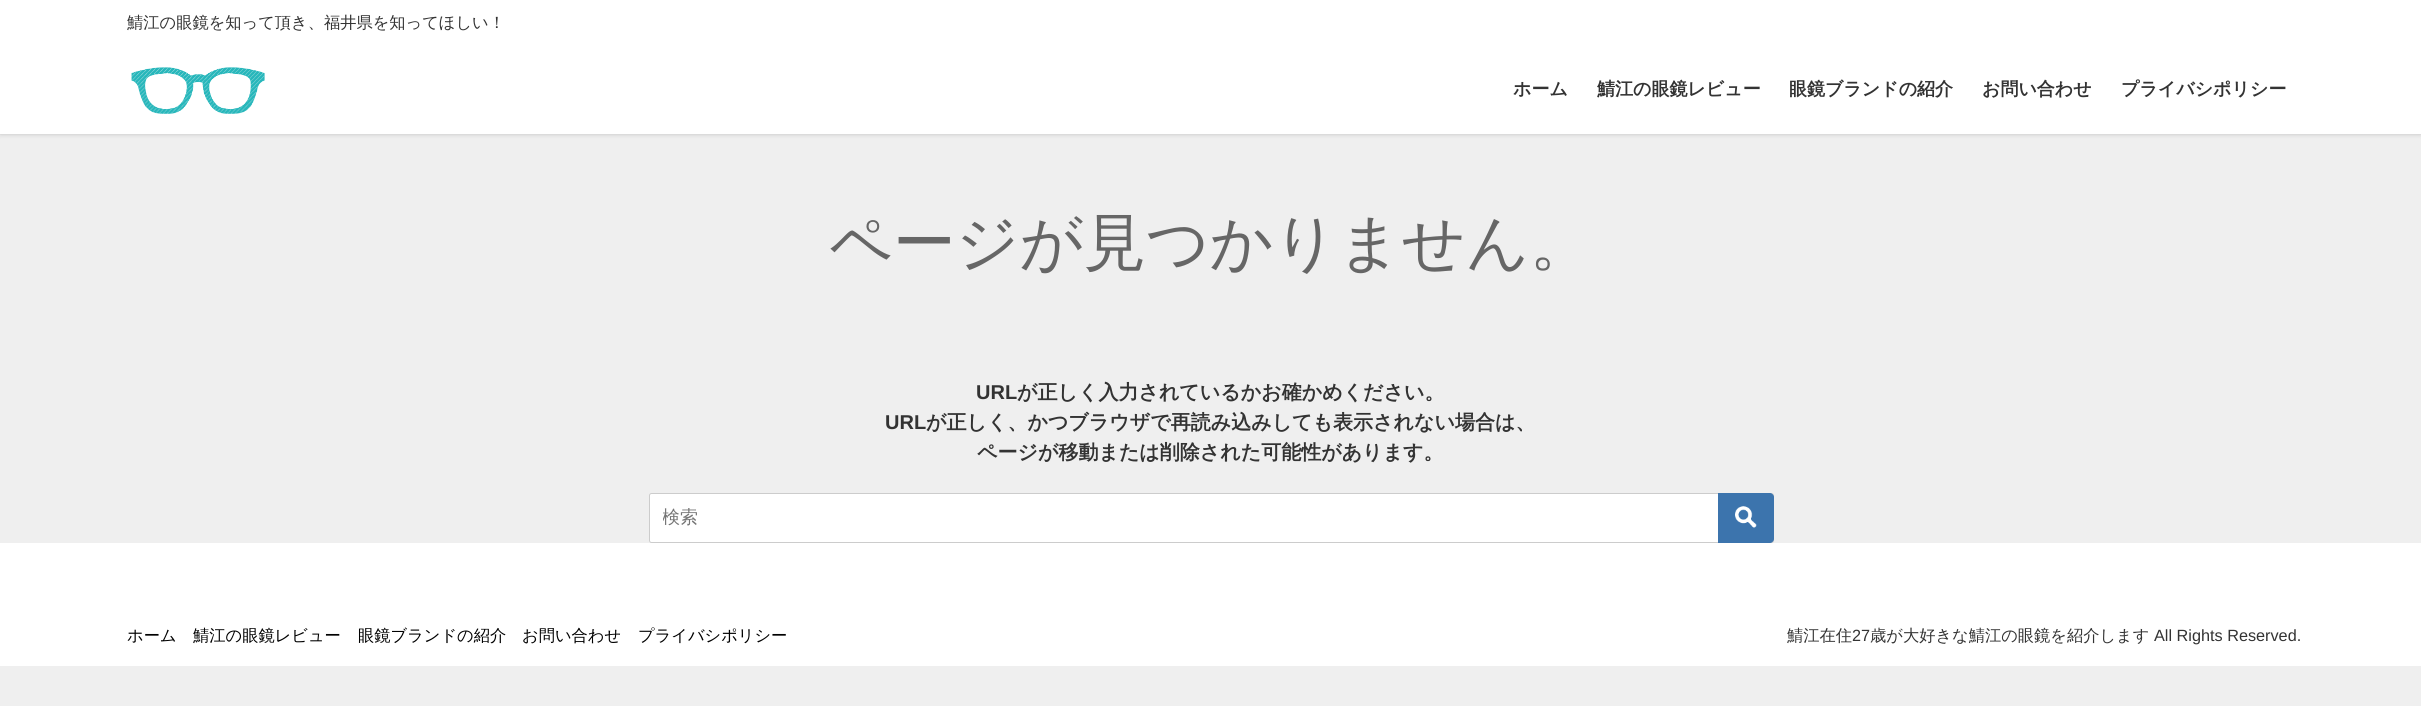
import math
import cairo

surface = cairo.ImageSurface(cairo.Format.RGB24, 2421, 706)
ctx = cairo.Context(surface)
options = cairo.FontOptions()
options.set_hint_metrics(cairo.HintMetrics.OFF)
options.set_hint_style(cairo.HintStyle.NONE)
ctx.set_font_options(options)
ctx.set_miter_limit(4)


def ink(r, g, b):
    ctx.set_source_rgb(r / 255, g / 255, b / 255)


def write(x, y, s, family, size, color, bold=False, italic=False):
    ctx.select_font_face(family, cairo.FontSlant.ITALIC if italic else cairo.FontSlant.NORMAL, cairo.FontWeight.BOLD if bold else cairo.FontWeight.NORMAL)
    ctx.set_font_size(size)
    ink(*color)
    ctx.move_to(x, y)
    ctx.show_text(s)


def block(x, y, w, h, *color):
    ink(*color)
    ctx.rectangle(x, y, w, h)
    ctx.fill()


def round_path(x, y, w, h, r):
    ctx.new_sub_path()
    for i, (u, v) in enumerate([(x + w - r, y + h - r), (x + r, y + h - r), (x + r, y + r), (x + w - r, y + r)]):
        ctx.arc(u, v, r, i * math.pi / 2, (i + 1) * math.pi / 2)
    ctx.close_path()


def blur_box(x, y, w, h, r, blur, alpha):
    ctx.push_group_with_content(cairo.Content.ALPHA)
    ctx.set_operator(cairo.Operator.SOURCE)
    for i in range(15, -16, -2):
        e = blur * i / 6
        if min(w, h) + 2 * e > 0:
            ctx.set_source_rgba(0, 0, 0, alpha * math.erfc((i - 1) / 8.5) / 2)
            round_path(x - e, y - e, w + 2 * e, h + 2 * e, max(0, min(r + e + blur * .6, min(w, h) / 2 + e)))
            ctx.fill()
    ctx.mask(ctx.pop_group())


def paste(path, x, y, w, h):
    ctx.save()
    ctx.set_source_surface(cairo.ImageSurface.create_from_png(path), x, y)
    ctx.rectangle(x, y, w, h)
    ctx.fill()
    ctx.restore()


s1 = dict(family="WenQuanYi Zen Hei Medium", size=16.25, color=(51, 51, 51))
s2 = dict(family="WenQuanYi Zen Hei", size=18, color=(51, 51, 51), bold=True)
s3 = dict(family="WenQuanYi Zen Hei Medium", size=62.5, color=(102, 102, 102))
s4 = dict(family="Liberation Sans", size=20, color=(51, 51, 51), bold=True)
s5 = dict(family="WenQuanYi Zen Hei", size=20, color=(51, 51, 51), bold=True)
s6 = dict(family="WenQuanYi Zen Hei Medium", size=18, color=(117, 117, 117))
s7 = dict(family="WenQuanYi Zen Hei Medium", size=16.25, color=(0, 0, 0))
s8 = dict(family="Liberation Sans", size=16.25, color=(51, 51, 51))

ink(239, 239, 239)
ctx.paint()
ink(0, 0, 0)
blur_box(0, 0, 2421, 134, 0, 2.5, 0.2)
block(0, 0, 2421, 134, 255, 255, 255)
write(127, 28, "鯖江の眼鏡を知って頂き、福井県を知ってほしい！", **s1)
paste("pic1.png", 131, 67, 134, 47)
write(1513, 95, "ホーム", **s2)
write(1597, 95, "鯖江の眼鏡レビュー", **s2)
write(1789, 95, "眼鏡ブランドの紹介", **s2)
write(1982, 95, "お問い合わせ", **s2)
write(2121, 95, "プライバシポリシー", **s2)
write(829, 264, "ページが見つかりません。", **s3)
write(976, 399, "URL", **s4)
write(1017, 399, "が正しく入力されているかお確かめください。", **s5)
write(885, 429, "URL", **s4)
write(926, 429, "が正しく、かつブラウザで再読み込みしても表示されない場合は、", **s5)
write(977, 459, "ページが移動または削除された可能性があります。", **s5)
ink(255, 255, 255)
round_path(649.5, 493.5, 1124, 49, 2)
ctx.fill_preserve()
ink(204, 204, 204)
ctx.set_line_width(1)
ctx.stroke()
ctx.save()
ctx.rectangle(663, 508, 1047, 22)
ctx.clip()
write(662, 523, "検索", **s6)
ctx.restore()
ink(60, 116, 173)
ctx.new_path()
ctx.move_to(1718, 493)
ctx.line_to(1770, 493)
ctx.curve_to(1772, 493, 1774, 495, 1774, 497)
ctx.line_to(1774, 539)
ctx.curve_to(1774, 541, 1772, 543, 1770, 543)
ctx.line_to(1718, 543)
ctx.close_path()
ctx.fill()
paste("pic2.png", 1735, 506, 22, 22)
block(0, 543, 2421, 123, 255, 255, 255)
write(127, 641, "ホーム", **s7)
write(193, 641, "鯖江の眼鏡レビュー", **s7)
write(358, 641, "眼鏡ブランドの紹介", **s7)
write(522, 641, "お問い合わせ", **s7)
write(638, 641, "プライバシポリシー", **s7)
write(1787, 641, "鯖江在住", **s1)
write(1852, 641, "27", **s8)
write(1870, 641, "歳が大好きな鯖江の眼鏡を紹介します", **s1)
write(2154, 641, "All Rights Reserved.", **s8)
surface.write_to_png("screenshot.png")
